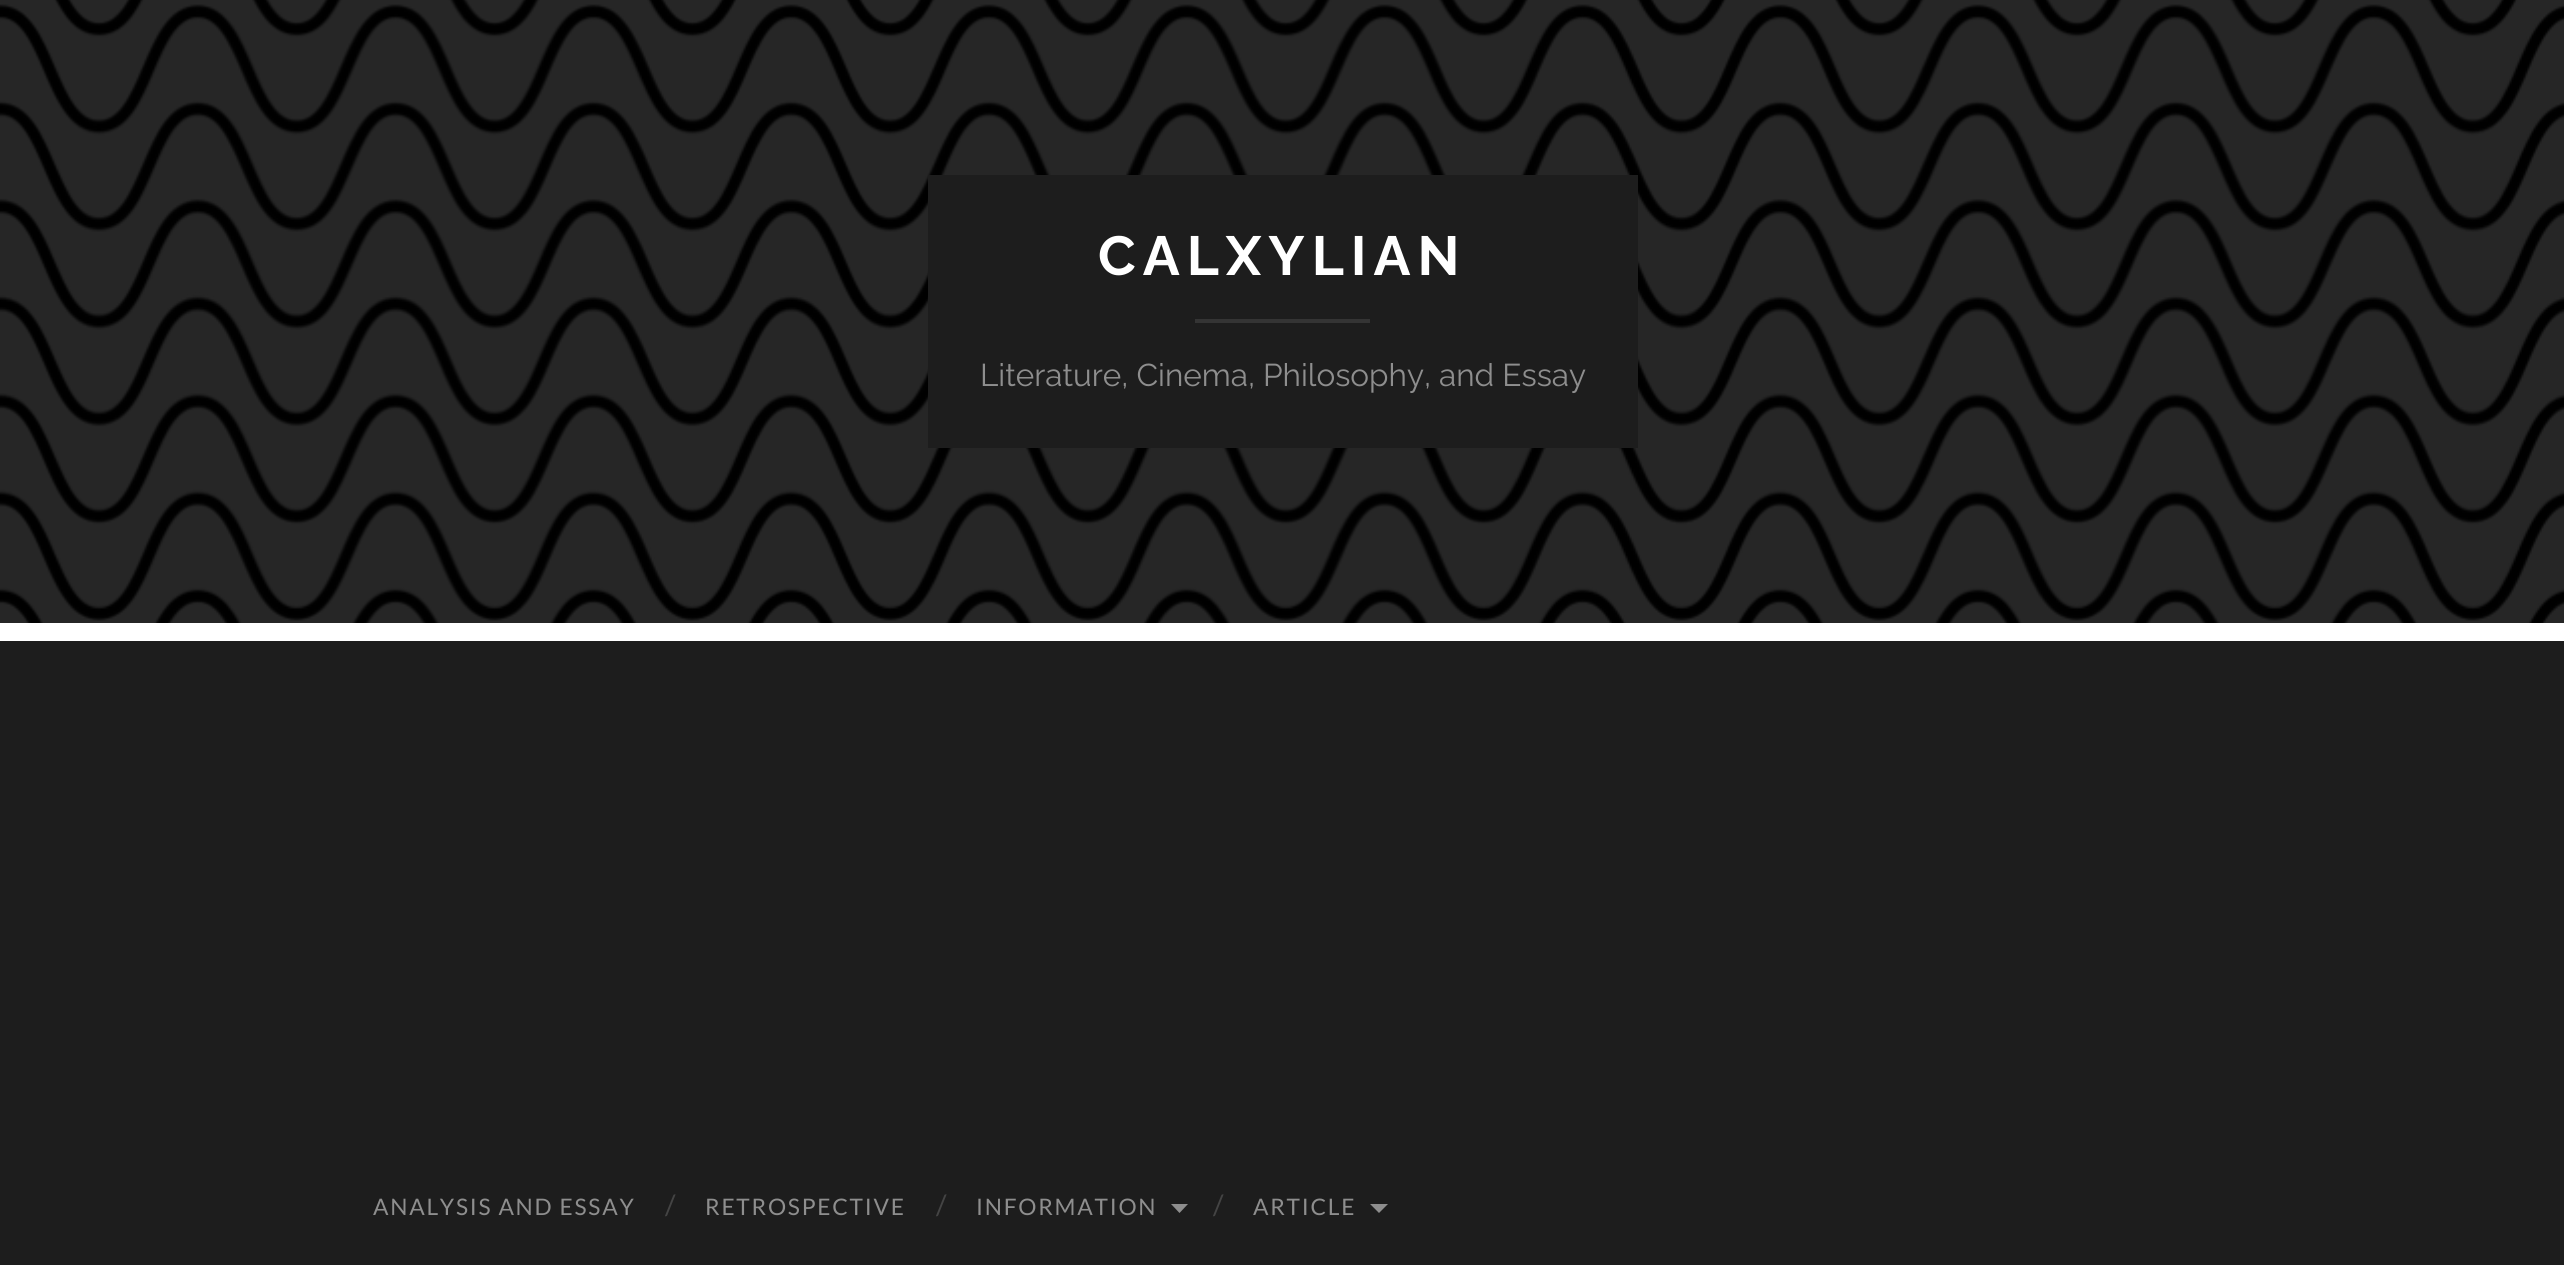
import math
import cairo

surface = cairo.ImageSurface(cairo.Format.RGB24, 2564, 1269)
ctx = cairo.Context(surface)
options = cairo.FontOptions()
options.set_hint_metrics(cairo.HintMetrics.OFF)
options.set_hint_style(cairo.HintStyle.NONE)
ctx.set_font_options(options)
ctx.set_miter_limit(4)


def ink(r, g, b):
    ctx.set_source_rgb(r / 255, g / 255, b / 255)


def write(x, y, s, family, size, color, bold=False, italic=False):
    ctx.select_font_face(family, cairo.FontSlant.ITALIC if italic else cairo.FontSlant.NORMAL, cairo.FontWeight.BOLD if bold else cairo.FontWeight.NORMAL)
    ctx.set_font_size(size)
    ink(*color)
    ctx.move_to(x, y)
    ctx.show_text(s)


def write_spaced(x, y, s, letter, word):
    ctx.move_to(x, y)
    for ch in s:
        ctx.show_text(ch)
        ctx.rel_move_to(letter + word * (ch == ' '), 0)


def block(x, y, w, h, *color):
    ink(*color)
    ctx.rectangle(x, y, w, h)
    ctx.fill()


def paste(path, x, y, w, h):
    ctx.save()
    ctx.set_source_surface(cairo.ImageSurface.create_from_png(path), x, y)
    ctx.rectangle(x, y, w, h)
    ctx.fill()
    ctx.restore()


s1 = dict(family="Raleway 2 Thin", size=31.5, color=(142, 142, 142))
s2 = dict(family="Lato", size=28, color=(68, 68, 68))

ink(255, 255, 255)
ctx.paint()
block(0, 0, 2564, 623, 38, 38, 38)
paste("pic1.png", 0, 0, 2564, 623)
block(928, 175, 710, 273, 29, 29, 29)
ctx.select_font_face("Raleway Thin")
ctx.set_font_size(55)
ink(255, 255, 255)
write_spaced(1098, 275, "CALXYLIAN", 7, 0)
block(1195, 319, 175, 4, 52, 52, 52)
write(980, 386, "Literature, Cinema, Philosophy, and Essay", **s1)
block(0, 641, 2564, 624, 29, 29, 29)
ctx.select_font_face("Lato")
ctx.set_font_size(22.75)
ink(142, 142, 142)
write_spaced(373, 1215, "ANALYSIS AND ESSAY", 1.75, 0)
write(665, 1215, "/", **s2)
ctx.set_font_size(22.75)
ink(142, 142, 142)
write_spaced(705, 1215, "RETROSPECTIVE", 1.75, 0)
write(936, 1215, "/", **s2)
ctx.set_font_size(22.75)
ink(142, 142, 142)
write_spaced(976, 1215, "INFORMATION", 1.75, 0)
ctx.new_path()
ctx.move_to(1171, 1204)
ctx.line_to(1188, 1204)
ctx.line_to(1179.5, 1213)
ctx.close_path()
ctx.fill()
write(1213, 1215, "/", **s2)
ctx.set_font_size(22.75)
ink(142, 142, 142)
write_spaced(1253, 1215, "ARTICLE", 1.75, 0)
ctx.new_path()
ctx.move_to(1370, 1204)
ctx.line_to(1388, 1204)
ctx.line_to(1379, 1213)
ctx.close_path()
ctx.fill()
surface.write_to_png("screenshot.png")
